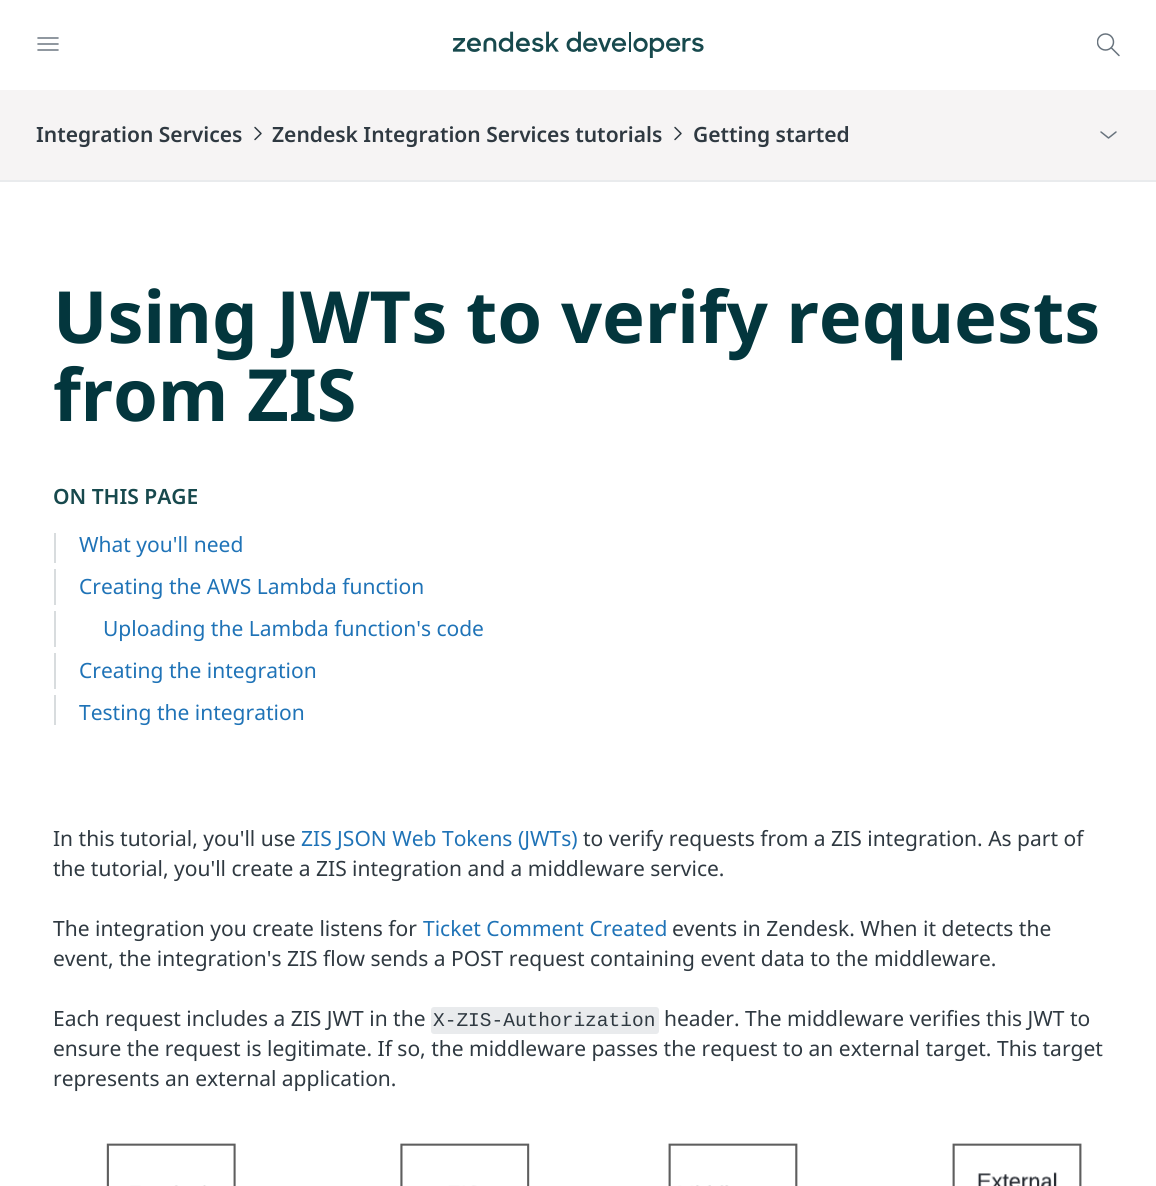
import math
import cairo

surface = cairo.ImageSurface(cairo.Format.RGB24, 1156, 1186)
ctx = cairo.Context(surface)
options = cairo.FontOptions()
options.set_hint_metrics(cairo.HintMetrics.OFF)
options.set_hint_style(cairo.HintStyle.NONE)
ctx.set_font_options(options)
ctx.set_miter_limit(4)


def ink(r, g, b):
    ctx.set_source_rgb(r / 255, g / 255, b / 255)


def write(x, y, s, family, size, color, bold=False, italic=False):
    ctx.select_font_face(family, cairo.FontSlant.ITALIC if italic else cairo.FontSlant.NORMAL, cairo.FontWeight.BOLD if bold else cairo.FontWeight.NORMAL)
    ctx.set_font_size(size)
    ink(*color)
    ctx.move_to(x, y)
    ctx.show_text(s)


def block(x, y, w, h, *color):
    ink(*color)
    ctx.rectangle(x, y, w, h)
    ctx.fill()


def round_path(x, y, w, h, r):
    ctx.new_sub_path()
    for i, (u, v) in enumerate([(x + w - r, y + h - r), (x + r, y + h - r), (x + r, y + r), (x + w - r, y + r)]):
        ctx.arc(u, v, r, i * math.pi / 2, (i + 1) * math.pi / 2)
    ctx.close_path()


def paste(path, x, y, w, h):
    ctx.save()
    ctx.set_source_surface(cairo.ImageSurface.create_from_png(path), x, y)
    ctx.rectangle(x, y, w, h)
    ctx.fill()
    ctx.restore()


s1 = dict(family="Noto Sans SemiBold", size=21, color=(47, 57, 65))
s2 = dict(family="Noto Sans", size=72, color=(3, 54, 61), bold=True)
s3 = dict(family="Noto Sans SemiBold", size=21, color=(23, 73, 77))
s4 = dict(family="Noto Sans", size=21, color=(31, 115, 183))
s5 = dict(family="Noto Sans", size=21, color=(47, 57, 65))
s6 = dict(family="Liberation Mono", size=19.5, color=(47, 57, 65))

ink(255, 255, 255)
ctx.paint()
ctx.new_path()
ctx.move_to(38, 38)
ctx.line_to(58, 38)
ctx.move_to(38, 44)
ctx.line_to(58, 44)
ctx.move_to(38, 50)
ctx.line_to(58, 50)
ink(104, 115, 125)
ctx.set_line_width(1.5)
ctx.set_line_cap(cairo.LineCap.ROUND)
ctx.stroke()
paste("pic1.png", 452, 31, 252, 27)
ctx.save()
ctx.rectangle(1097, 33, 24, 24)
ctx.clip()
ctx.arc(1105.5, 42, 8, 0, 2 * math.pi)
ctx.set_line_cap(cairo.LineCap.BUTT)
ctx.stroke()
ctx.restore()
ctx.new_path()
ctx.move_to(1119, 55.5)
ctx.line_to(1111.5, 48)
ctx.stroke()
block(0, 90, 1156, 90, 246, 244, 244)
write(36, 142, "Integration Services", **s1)
paste("pic2.png", 254, 126, 8, 15)
write(272, 142, "Zendesk Integration Services tutorials", **s1)
paste("pic2.png", 674, 126, 8, 15)
write(693, 142, "Getting started", **s1)
paste("pic3.png", 1100, 131, 17, 8)
block(0, 180, 1156, 2, 233, 235, 237)
write(53, 343, "Using JWTs to verify requests", **s2)
write(53, 421, "from ZIS", **s2)
write(53, 504, "ON THIS PAGE", **s3)
block(54, 533, 2, 30, 216, 220, 222)
write(79, 552, "What you'll need", **s4)
block(54, 569, 2, 36, 216, 220, 222)
write(79, 594, "Creating the AWS Lambda function", **s4)
block(54, 611, 2, 36, 216, 220, 222)
write(103, 636, "Uploading the Lambda function's code", **s4)
block(54, 653, 2, 36, 216, 220, 222)
write(79, 678, "Creating the integration", **s4)
block(54, 695, 2, 30, 216, 220, 222)
write(79, 720, "Testing the integration", **s4)
write(53, 846, "In this tutorial, you'll use", **s5)
write(301, 846, "ZIS JSON Web Tokens (JWTs)", **s4)
write(583, 846, "to verify requests from a ZIS integration. As part of", **s5)
write(53, 876, "the tutorial, you'll create a ZIS integration and a middleware service.", **s5)
write(53, 936, "The integration you create listens for", **s5)
write(423, 936, "Ticket Comment Created", **s4)
write(672, 936, "events in Zendesk. When it detects the", **s5)
write(53, 966, "event, the integration's ZIS flow sends a POST request containing event data to the middleware.", **s5)
write(53, 1026, "Each request includes a ZIS JWT in the", **s5)
ink(233, 235, 237)
round_path(431, 1007, 228, 27, 3)
ctx.fill()
write(433, 1026, "X-ZIS-Authorization", **s6)
write(664, 1026, "header. The middleware verifies this JWT to", **s5)
write(53, 1056, "ensure the request is legitimate. If so, the middleware passes the request to an external target. This target", **s5)
write(53, 1086, "represents an external application.", **s5)
paste("pic4.png", 106, 1143, 976, 43)
surface.write_to_png("screenshot.png")
